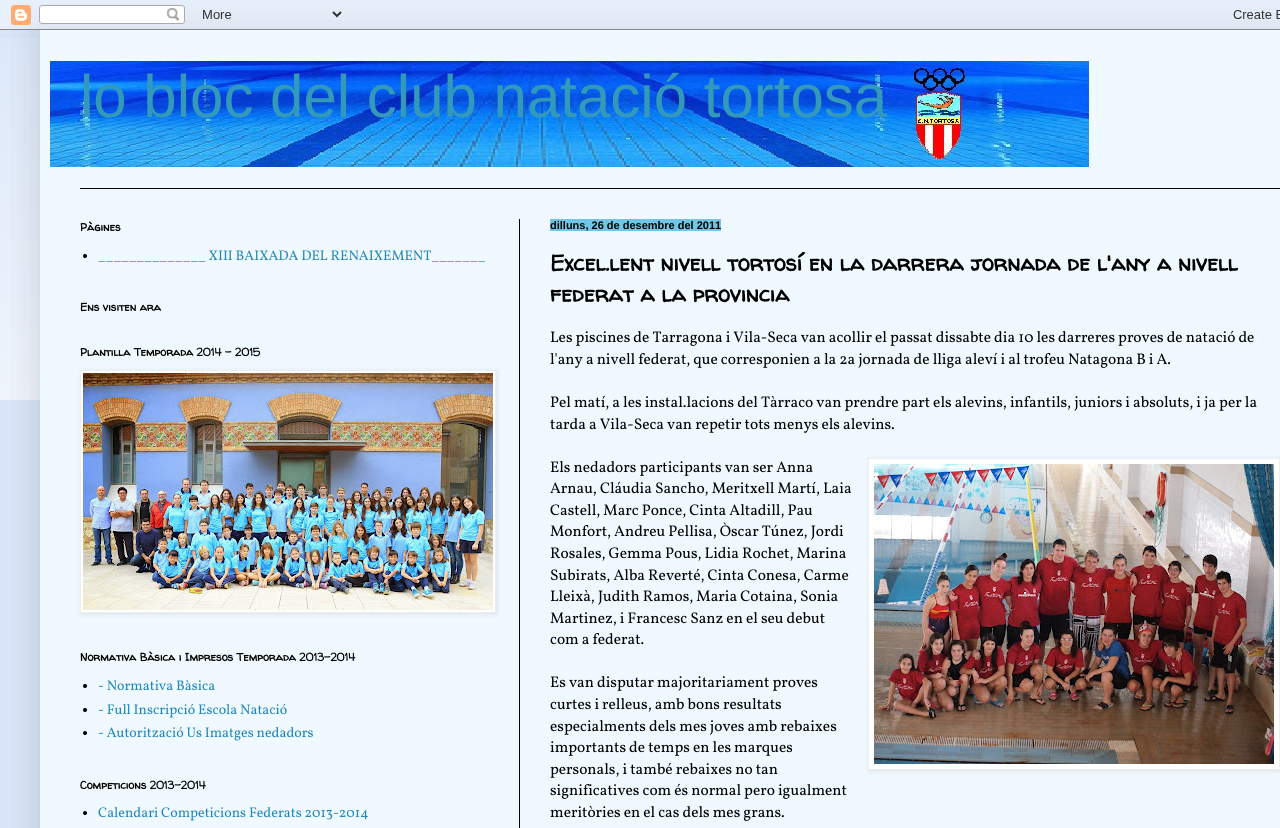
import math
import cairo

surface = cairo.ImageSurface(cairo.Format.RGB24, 1280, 828)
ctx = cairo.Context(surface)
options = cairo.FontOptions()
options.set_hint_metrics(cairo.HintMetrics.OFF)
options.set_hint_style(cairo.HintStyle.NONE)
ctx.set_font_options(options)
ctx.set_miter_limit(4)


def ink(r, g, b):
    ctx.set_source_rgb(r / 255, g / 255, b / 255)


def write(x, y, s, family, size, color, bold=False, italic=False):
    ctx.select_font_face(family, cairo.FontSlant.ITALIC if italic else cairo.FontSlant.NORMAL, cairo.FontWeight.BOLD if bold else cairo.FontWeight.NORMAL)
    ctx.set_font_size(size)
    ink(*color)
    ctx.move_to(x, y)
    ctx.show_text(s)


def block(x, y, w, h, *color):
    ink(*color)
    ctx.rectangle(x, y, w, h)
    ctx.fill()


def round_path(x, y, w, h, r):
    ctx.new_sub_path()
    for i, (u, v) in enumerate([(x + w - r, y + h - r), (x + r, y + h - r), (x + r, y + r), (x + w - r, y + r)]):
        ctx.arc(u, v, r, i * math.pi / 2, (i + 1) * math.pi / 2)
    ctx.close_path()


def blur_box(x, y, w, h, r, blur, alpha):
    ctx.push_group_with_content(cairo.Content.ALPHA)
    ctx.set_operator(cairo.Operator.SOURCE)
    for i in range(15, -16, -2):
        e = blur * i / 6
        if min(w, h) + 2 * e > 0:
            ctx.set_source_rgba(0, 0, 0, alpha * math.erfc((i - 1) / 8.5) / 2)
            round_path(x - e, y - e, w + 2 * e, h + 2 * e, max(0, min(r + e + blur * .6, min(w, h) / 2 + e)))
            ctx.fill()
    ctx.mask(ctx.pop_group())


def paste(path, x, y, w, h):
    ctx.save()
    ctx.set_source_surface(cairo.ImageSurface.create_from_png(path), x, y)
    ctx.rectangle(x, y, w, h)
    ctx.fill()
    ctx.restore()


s1 = dict(family="Liberation Sans", size=60, color=(51, 153, 187))
s2 = dict(family="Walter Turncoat", size=11, color=(0, 0, 0), bold=True)
s3 = dict(family="Vollkorn", size=14, color=(34, 136, 187))
s4 = dict(family="Liberation Sans", size=11, color=(0, 0, 0), bold=True)
s5 = dict(family="Walter Turncoat", size=22, color=(0, 0, 0), bold=True)
s6 = dict(family="Vollkorn", size=15.4, color=(0, 0, 0))

ink(217, 230, 249)
ctx.paint()
paste("pic2.png", 0, 38, 40, 362)
ink(0, 0, 0)
blur_box(40, 30, 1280, 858, 0, 20, 0.15)
paste("pic1.png", 0, 0, 1280, 30)
block(40, 30, 1240, 798, 240, 249, 255)
paste("pic3.png", 50, 61, 1039, 106)
write(80, 117, "lo bloc del club natació tortosa", **s1)
block(80, 188, 1200, 1, 0, 0, 0)
block(519, 219, 1, 609, 0, 0, 0)
write(80, 231, "Pàgines", **s2)
ctx.new_path()
ctx.arc(85, 256, 2, 0, 2 * math.pi)
ctx.fill()
write(98, 260, "______________ XIII BAIXADA DEL RENAIXEMENT_______", **s3)
write(80, 311, "Ens visiten ara", **s2)
write(80, 356, "Plantilla Temporada 2014 - 2015", **s2)
ink(0, 0, 0)
blur_box(81, 371, 416, 243, 0, 2.5, 0.1)
ink(255, 255, 255)
ctx.rectangle(80.5, 370.5, 415, 242)
ctx.fill_preserve()
ink(238, 238, 238)
ctx.set_line_width(1)
ctx.stroke()
paste("pic4.png", 83, 373, 410, 237)
write(80, 661, "Normativa Bàsica i Impresos Temporada 2013-2014", **s2)
ctx.new_path()
ctx.arc(85, 686, 2, 0, 2 * math.pi)
ctx.fill()
write(98, 690, "- Normativa Bàsica", **s3)
ink(0, 0, 0)
ctx.new_path()
ctx.arc(85, 710, 2, 0, 2 * math.pi)
ctx.fill()
write(98, 714, "- Full Inscripció Escola Natació", **s3)
ink(0, 0, 0)
ctx.new_path()
ctx.arc(85, 733, 2, 0, 2 * math.pi)
ctx.fill()
write(98, 737, "- Autorització Us Imatges nedadors", **s3)
write(80, 789, "Competicions 2013-2014", **s2)
ctx.new_path()
ctx.arc(85, 813, 2, 0, 2 * math.pi)
ctx.fill()
write(98, 817, "Calendari Competicions Federats 2013-2014", **s3)
block(550, 219, 171, 12, 114, 198, 229)
write(550, 229, "dilluns, 26 de desembre del 2011", **s4)
write(550, 271, "Excel.lent nivell tortosí en la darrera jornada de l'any a nivell", **s5)
write(550, 302, "federat a la provincia", **s5)
write(550, 342, "Les piscines de Tarragona i Vila-Seca van acollir el passat dissabte dia 10 les darreres proves de natació de", **s6)
write(550, 364, "l'any a nivell federat, que corresponien a la 2a jornada de lliga aleví i al trofeu Natagona B i A.", **s6)
write(550, 407, "Pel matí, a les instal.lacions del Tàrraco van prendre part els alevins, infantils, juniors i absoluts, i ja per la", **s6)
write(550, 429, "tarda a Vila-Seca van repetir tots menys els alevins.", **s6)
write(550, 472, "Els nedadors participants van ser Anna", **s6)
ink(0, 0, 0)
blur_box(869, 459, 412, 312, 0, 2.5, 0.1)
ink(255, 255, 255)
ctx.rectangle(868.5, 458.5, 411, 311)
ctx.fill_preserve()
ink(238, 238, 238)
ctx.stroke()
paste("pic5.png", 874, 464, 400, 300)
write(550, 493, "Arnau, Cláudia Sancho, Meritxell Martí, Laia", **s6)
write(550, 515, "Castell, Marc Ponce, Cinta Altadill, Pau", **s6)
write(550, 536, "Monfort, Andreu Pellisa, Òscar Túnez, Jordi", **s6)
write(550, 558, "Rosales, Gemma Pous, Lidia Rochet, Marina", **s6)
write(550, 580, "Subirats, Alba Reverté, Cinta Conesa, Carme", **s6)
write(550, 601, "Lleixà, Judith Ramos, Maria Cotaina, Sonia", **s6)
write(550, 623, "Martinez, i Francesc Sanz en el seu debut", **s6)
write(550, 644, "com a federat.", **s6)
write(550, 687, "Es van disputar majoritariament proves", **s6)
write(550, 709, "curtes i relleus, amb bons resultats", **s6)
write(550, 731, "especialments dels mes joves amb rebaixes", **s6)
write(550, 752, "importants de temps en les marques", **s6)
write(550, 774, "personals, i també rebaixes no tan", **s6)
write(550, 795, "significatives com és normal pero igualment", **s6)
write(550, 817, "meritòries en el cas dels mes grans.", **s6)
surface.write_to_png("screenshot.png")
